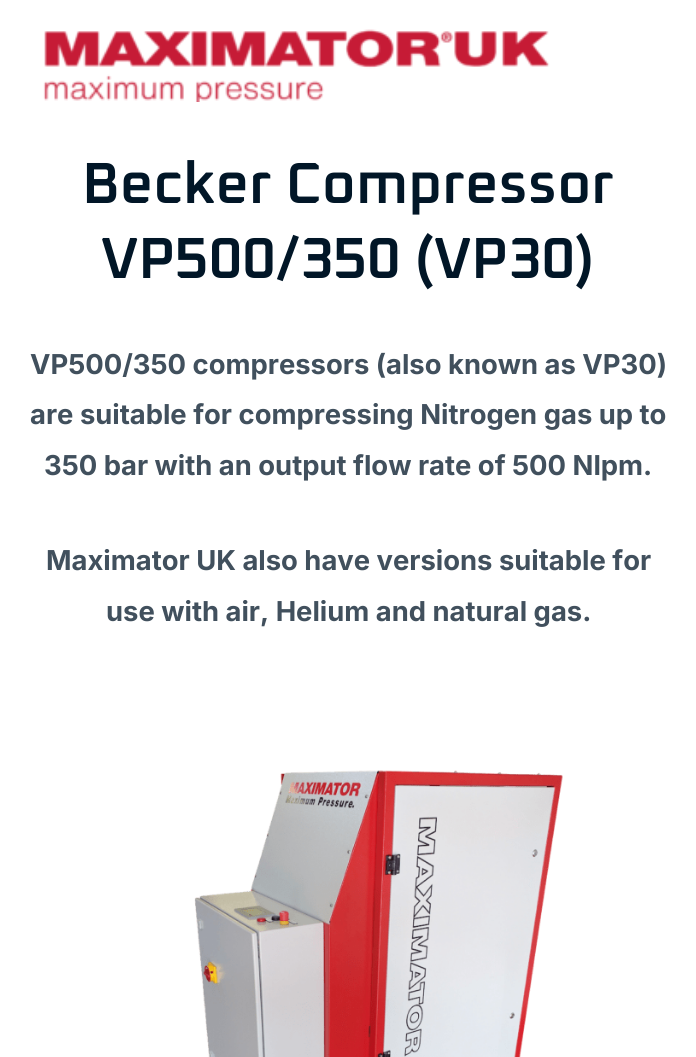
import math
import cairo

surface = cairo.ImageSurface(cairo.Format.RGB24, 696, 1057)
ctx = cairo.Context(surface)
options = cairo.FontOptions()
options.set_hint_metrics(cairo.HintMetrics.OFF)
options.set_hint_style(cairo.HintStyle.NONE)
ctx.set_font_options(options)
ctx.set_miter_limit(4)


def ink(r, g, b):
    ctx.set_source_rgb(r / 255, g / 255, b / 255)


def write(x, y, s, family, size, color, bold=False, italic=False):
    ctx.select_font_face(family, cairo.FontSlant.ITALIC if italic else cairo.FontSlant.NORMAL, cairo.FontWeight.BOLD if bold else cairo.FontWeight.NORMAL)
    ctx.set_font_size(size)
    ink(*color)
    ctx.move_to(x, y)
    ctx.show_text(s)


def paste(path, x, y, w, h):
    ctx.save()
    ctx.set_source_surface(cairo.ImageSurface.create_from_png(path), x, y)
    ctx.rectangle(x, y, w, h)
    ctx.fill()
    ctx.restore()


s1 = dict(family="Oxanium ExtraLight", size=58, color=(1, 22, 39))
s2 = dict(family="Inter", size=27.4, color=(65, 80, 93), bold=True)

ink(255, 255, 255)
ctx.paint()
paste("pic1.png", 43, 29, 507, 73)
write(82, 203, "Becker Compressor", **s1)
write(101, 278, "VP500/350 (VP30)", **s1)
write(30, 374, "VP500/350 compressors (also known as VP30)", **s2)
write(30, 424, "are suitable for compressing Nitrogen gas up to", **s2)
write(44, 475, "350 bar with an output flow rate of 500 Nlpm.", **s2)
write(46, 570, "Maximator UK also have versions suitable for", **s2)
write(106, 621, "use with air, Helium and natural gas.", **s2)
paste("pic2.png", 194, 770, 369, 287)
surface.write_to_png("screenshot.png")
